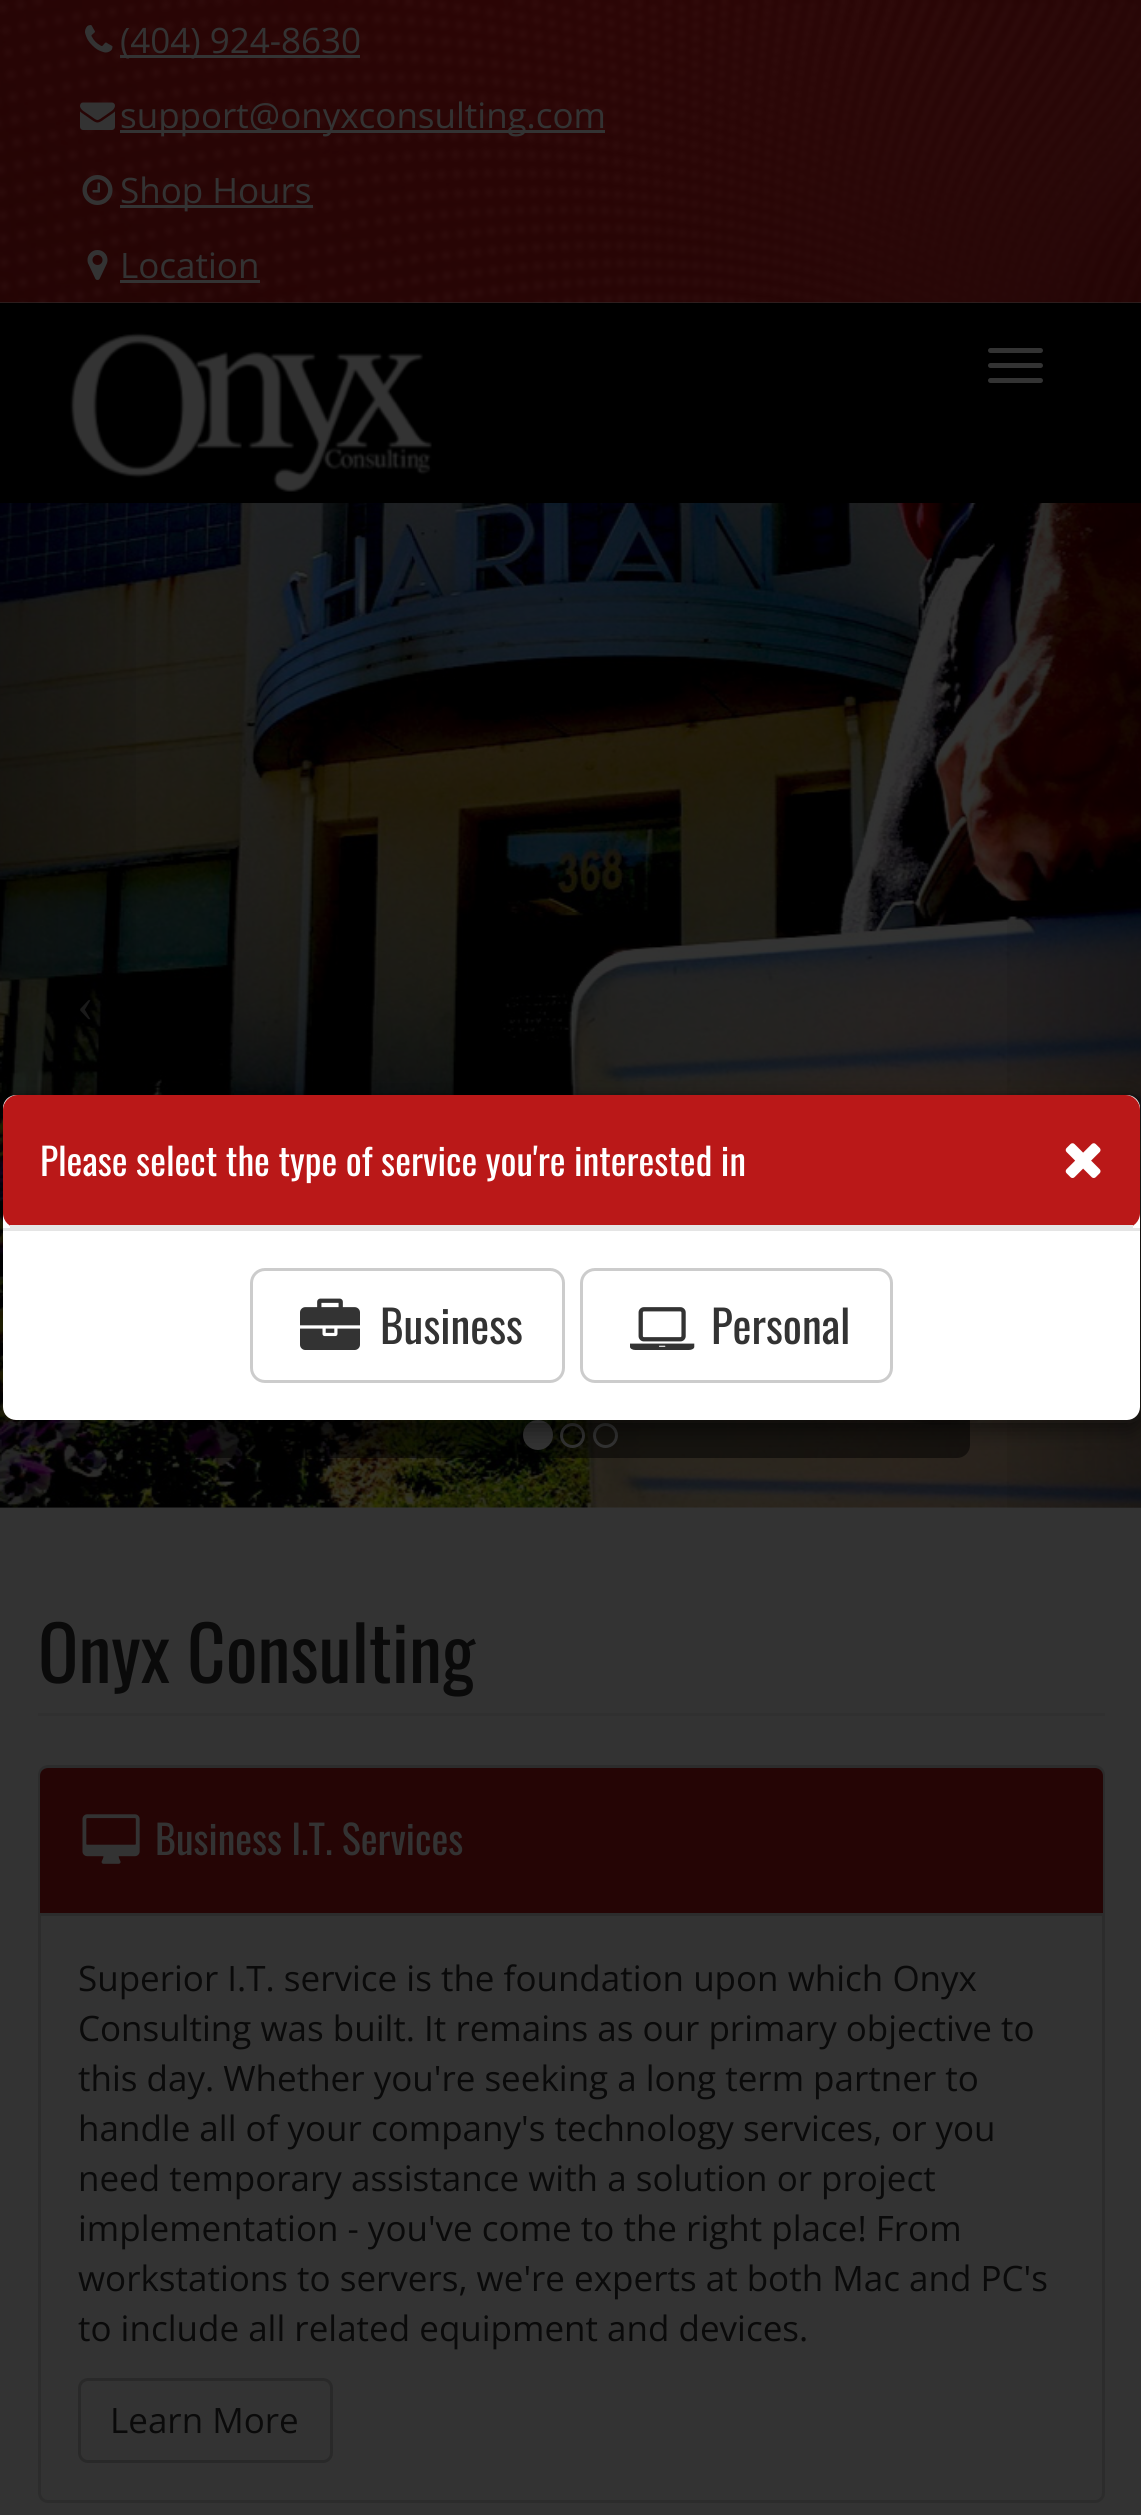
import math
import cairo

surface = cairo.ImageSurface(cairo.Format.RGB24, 1141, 2515)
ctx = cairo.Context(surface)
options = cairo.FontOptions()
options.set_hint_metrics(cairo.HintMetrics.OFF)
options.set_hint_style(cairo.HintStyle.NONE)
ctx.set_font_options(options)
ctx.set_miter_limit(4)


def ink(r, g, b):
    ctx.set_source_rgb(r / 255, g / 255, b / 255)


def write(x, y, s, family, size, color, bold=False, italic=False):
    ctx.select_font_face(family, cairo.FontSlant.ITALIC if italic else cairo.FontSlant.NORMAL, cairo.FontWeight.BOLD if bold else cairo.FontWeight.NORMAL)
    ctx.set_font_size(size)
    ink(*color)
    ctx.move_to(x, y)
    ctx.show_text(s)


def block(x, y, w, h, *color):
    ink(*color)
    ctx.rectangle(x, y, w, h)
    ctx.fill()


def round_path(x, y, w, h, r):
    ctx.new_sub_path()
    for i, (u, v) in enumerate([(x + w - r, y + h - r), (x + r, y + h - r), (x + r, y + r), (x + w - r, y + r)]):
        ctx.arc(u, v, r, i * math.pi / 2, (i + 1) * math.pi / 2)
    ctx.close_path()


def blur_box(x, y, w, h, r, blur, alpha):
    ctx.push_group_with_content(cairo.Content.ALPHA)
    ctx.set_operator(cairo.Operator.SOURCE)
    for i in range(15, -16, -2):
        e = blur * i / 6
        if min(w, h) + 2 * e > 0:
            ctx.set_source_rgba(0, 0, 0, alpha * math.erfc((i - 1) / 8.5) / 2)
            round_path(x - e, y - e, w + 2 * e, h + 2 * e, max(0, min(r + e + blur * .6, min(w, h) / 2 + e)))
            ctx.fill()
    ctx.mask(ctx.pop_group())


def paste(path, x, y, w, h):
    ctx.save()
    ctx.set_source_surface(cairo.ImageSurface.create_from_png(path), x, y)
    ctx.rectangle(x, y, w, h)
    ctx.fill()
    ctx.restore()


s1 = dict(family="Open Sans", size=35, color=(51, 51, 51))
s2 = dict(family="Liberation Serif", size=50, color=(26, 26, 26))
s3 = dict(family="Oswald", size=37.5, color=(255, 255, 255))
s4 = dict(family="Oswald", size=45, color=(51, 51, 51))
s5 = dict(family="Oswald", size=75, color=(10, 10, 10))
s6 = dict(family="Oswald", size=40, color=(51, 51, 51))
s7 = dict(family="Open Sans", size=35, color=(10, 10, 10))

ink(51, 51, 51)
ctx.paint()
paste("pic1.png", 0, 0, 1141, 303)
paste("pic2.png", 85, 25, 28, 28)
block(120, 55, 240, 3, 51, 51, 51)
write(120, 53, "(404) 924-8630", **s1)
paste("pic3.png", 80, 102, 35, 28)
block(120, 130, 485, 3, 51, 51, 51)
write(120, 128, "support@onyxconsulting.com", **s1)
paste("pic4.png", 82, 175, 31, 30)
block(120, 205, 193, 3, 51, 51, 51)
write(120, 203, "Shop Hours", **s1)
paste("pic5.png", 87, 250, 21, 30)
write(120, 278, "Location", **s1)
block(120, 280, 140, 3, 51, 51, 51)
block(0, 303, 1141, 200, 0, 0, 0)
paste("pic6.png", 70, 332, 362, 160)
ink(51, 51, 51)
round_path(988, 348, 55, 5, 2.5)
ctx.fill()
round_path(988, 363, 55, 5, 2.5)
ctx.fill()
round_path(988, 378, 55, 5, 2.5)
ctx.fill()
paste("pic7.png", 0, 503, 1141, 1005)
ctx.set_source_rgba(0, 0, 0, 0.5)
round_path(173, 1123, 797, 335, 13)
ctx.fill()
gradient = cairo.LinearGradient(0, 1004, 173, 1004)
gradient.add_color_stop_rgba(0, 0, 0, 0, 0.25)
gradient.add_color_stop_rgba(1, 0, 0, 0, 0)
ctx.set_source(gradient)
ctx.rectangle(0, 503, 136, 1005)
ctx.fill()
write(77, 1021, "‹", **s2)
gradient = cairo.LinearGradient(970, 1004, 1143, 1004)
gradient.add_color_stop_rgba(0, 0, 0, 0, 0)
gradient.add_color_stop_rgba(1, 0, 0, 0, 0.25)
ctx.set_source(gradient)
ctx.rectangle(1007, 503, 134, 1005)
ctx.fill()
ink(51, 51, 51)
ctx.arc(538, 1435, 13.5, 0, 2 * math.pi)
ctx.fill_preserve()
ctx.set_line_width(3)
ctx.stroke()
ctx.arc(572.5, 1435.5, 11, 0, 2 * math.pi)
ctx.stroke()
ctx.arc(605.5, 1435.5, 11, 0, 2 * math.pi)
ctx.stroke()
ctx.save()
ctx.set_fill_rule(cairo.FillRule.EVEN_ODD)
ctx.new_path()
ctx.move_to(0, 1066)
ctx.line_to(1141, 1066)
ctx.line_to(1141, 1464)
ctx.line_to(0, 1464)
ctx.close_path()
ctx.move_to(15, 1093)
ctx.line_to(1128, 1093)
ctx.curve_to(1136.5, 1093, 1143, 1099.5, 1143, 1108)
ctx.line_to(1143, 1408)
ctx.curve_to(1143, 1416.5, 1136.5, 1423, 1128, 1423)
ctx.line_to(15, 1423)
ctx.curve_to(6.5, 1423, 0, 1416.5, 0, 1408)
ctx.line_to(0, 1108)
ctx.curve_to(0, 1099.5, 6.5, 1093, 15, 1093)
ctx.close_path()
ctx.clip()
ink(0, 0, 0)
blur_box(0, 1100, 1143, 330, 15, 11, 0.5)
ctx.restore()
ink(255, 255, 255)
round_path(3, 1095, 1137, 325, 13)
ctx.fill()
round_path(1.5, 1094.5, 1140, 327, 13.5)
ctx.set_source_rgba(0, 0, 0, 0.2)
ctx.stroke()
ink(186, 24, 24)
round_path(3, 1095, 1137, 133, 15)
ctx.fill()
block(10, 1225, 1123, 3, 229, 229, 229)
write(40, 1176, "Please select the type of service you're interested in", **s3)
paste("pic8.png", 1065, 1143, 36, 35)
block(3, 1228, 1137, 3, 229, 229, 229)
round_path(251.5, 1269.5, 312, 112, 13.5)
ink(204, 204, 204)
ctx.stroke()
paste("pic9.png", 300, 1298, 60, 52)
write(380, 1344, "Business", **s4)
round_path(581.5, 1269.5, 310, 112, 13.5)
ink(204, 204, 204)
ctx.stroke()
paste("pic10.png", 630, 1307, 65, 43)
write(711, 1344, "Personal", **s4)
block(38, 1713, 1067, 3, 48, 48, 48)
write(38, 1683, "Onyx Consulting", **s5)
round_path(39.5, 1766.5, 1064, 735, 8.5)
ink(44, 44, 44)
ctx.stroke()
ink(37, 5, 5)
ctx.new_path()
ctx.move_to(48, 1768)
ctx.line_to(1095, 1768)
ctx.curve_to(1099.5, 1768, 1103, 1771.5, 1103, 1776)
ctx.line_to(1103, 1915)
ctx.line_to(40, 1915)
ctx.line_to(40, 1776)
ctx.curve_to(40, 1771.5, 43.5, 1768, 48, 1768)
ctx.close_path()
ctx.fill()
block(40, 1913, 1063, 3, 44, 44, 44)
paste("pic11.png", 82, 1814, 58, 50)
write(155, 1855, "Business I.T. Services", **s6)
write(78, 1991, "Superior I.T. service is the foundation upon which Onyx", **s7)
write(78, 2041, "Consulting was built. It remains as our primary objective to", **s7)
write(78, 2091, "this day. Whether you're seeking a long term partner to", **s7)
write(78, 2141, "handle all of your company's technology services, or you", **s7)
write(78, 2191, "need temporary assistance with a solution or project", **s7)
write(78, 2241, "implementation - you've come to the right place! From", **s7)
write(78, 2291, "workstations to servers, we're experts at both Mac and PC's", **s7)
write(78, 2341, "to include all related equipment and devices.", **s7)
round_path(79.5, 2379.5, 252, 82, 8.5)
ink(41, 41, 41)
ctx.stroke()
write(110, 2433, "Learn More", **s7)
surface.write_to_png("screenshot.png")
